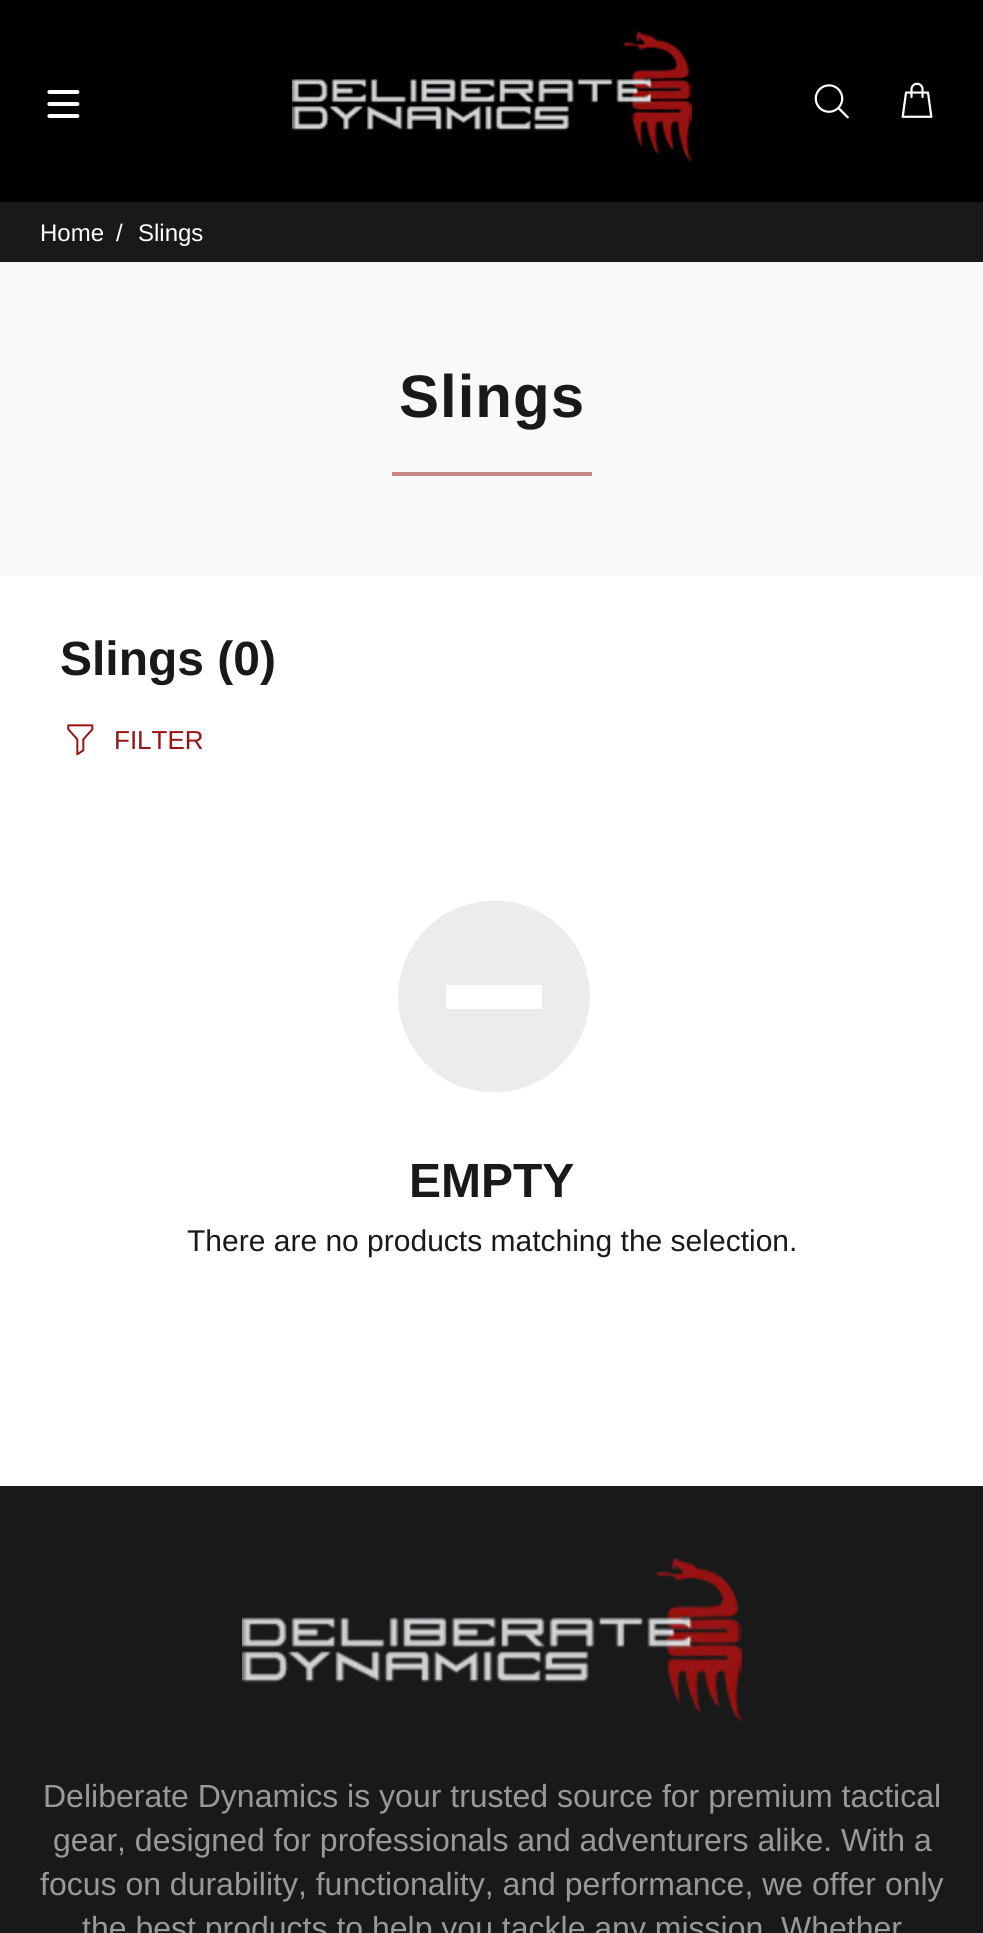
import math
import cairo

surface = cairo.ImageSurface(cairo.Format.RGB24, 983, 1933)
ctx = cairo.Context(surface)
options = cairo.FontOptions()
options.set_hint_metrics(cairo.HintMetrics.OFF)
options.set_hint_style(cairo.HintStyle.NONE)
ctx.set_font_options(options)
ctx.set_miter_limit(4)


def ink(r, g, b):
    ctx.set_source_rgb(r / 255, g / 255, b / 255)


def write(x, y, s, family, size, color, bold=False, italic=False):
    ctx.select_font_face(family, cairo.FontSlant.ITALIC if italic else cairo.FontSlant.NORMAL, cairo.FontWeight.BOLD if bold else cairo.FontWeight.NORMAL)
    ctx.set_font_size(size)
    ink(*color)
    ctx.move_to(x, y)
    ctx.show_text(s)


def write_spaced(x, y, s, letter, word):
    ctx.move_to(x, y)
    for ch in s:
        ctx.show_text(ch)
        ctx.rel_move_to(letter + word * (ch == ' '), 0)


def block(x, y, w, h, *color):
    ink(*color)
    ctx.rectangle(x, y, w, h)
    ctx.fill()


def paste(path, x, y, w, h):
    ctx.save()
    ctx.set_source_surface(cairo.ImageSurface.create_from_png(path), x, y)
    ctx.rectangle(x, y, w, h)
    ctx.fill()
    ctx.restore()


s1 = dict(family="Liberation Sans", size=24, color=(255, 255, 255))
s2 = dict(family="Liberation Sans", size=48, color=(25, 25, 25), bold=True)
s3 = dict(family="Liberation Sans", size=26, color=(153, 19, 18))
s4 = dict(family="Liberation Sans", size=30, color=(25, 25, 25))
s5 = dict(family="Liberation Sans", size=32, color=(153, 153, 153))

ink(255, 255, 255)
ctx.paint()
block(0, 0, 983, 202, 0, 0, 0)
paste("pic1.png", 47, 90, 33, 28)
paste("pic2.png", 292, 31, 400, 131)
paste("pic3.png", 814, 84, 35, 35)
paste("pic4.png", 901, 82, 32, 36)
block(0, 202, 983, 60, 25, 25, 25)
write(40, 241, "Home", **s1)
write(116, 241, "/", **s1)
write(138, 241, "Slings", **s1)
block(0, 262, 983, 314, 249, 249, 249)
ctx.select_font_face("Liberation Sans", cairo.FontSlant.NORMAL, cairo.FontWeight.BOLD)
ctx.set_font_size(60)
ink(25, 25, 25)
write_spaced(399, 417, "Slings", 1, 0)
block(392, 472, 200, 4, 202, 134, 134)
write(60, 675, "Slings (0)", **s2)
paste("pic5.png", 67, 724, 27, 32)
write(114, 749, "FILTER", **s3)
ink(235, 236, 238)
ctx.new_path()
ctx.move_to(531, 908)
ctx.curve_to(592, 934, 609, 1009, 566, 1059)
ctx.curve_to(552, 1076, 532, 1087, 511, 1091)
ctx.curve_to(493, 1094, 473, 1092, 456, 1085)
ctx.curve_to(437, 1077, 421, 1062, 411, 1044)
ctx.curve_to(375, 983, 418, 904, 489, 901)
ctx.curve_to(503, 900, 518, 902, 531, 908)
ctx.close_path()
ctx.move_to(542, 985)
ctx.line_to(446, 985)
ctx.line_to(446, 1009)
ctx.line_to(542, 1009)
ctx.close_path()
ctx.fill()
write(409, 1197, "EMPTY", **s2)
write(187, 1251, "There are no products matching the selection.", **s4)
block(0, 1486, 983, 447, 25, 25, 25)
paste("pic6.png", 242, 1557, 500, 165)
write(43, 1807, "Deliberate Dynamics is your trusted source for premium tactical", **s5)
write(53, 1851, "gear, designed for professionals and adventurers alike. With a", **s5)
write(40, 1895, "focus on durability, functionality, and performance, we offer only", **s5)
write(82, 1939, "the best products to help you tackle any mission. Whether", **s5)
surface.write_to_png("screenshot.png")
